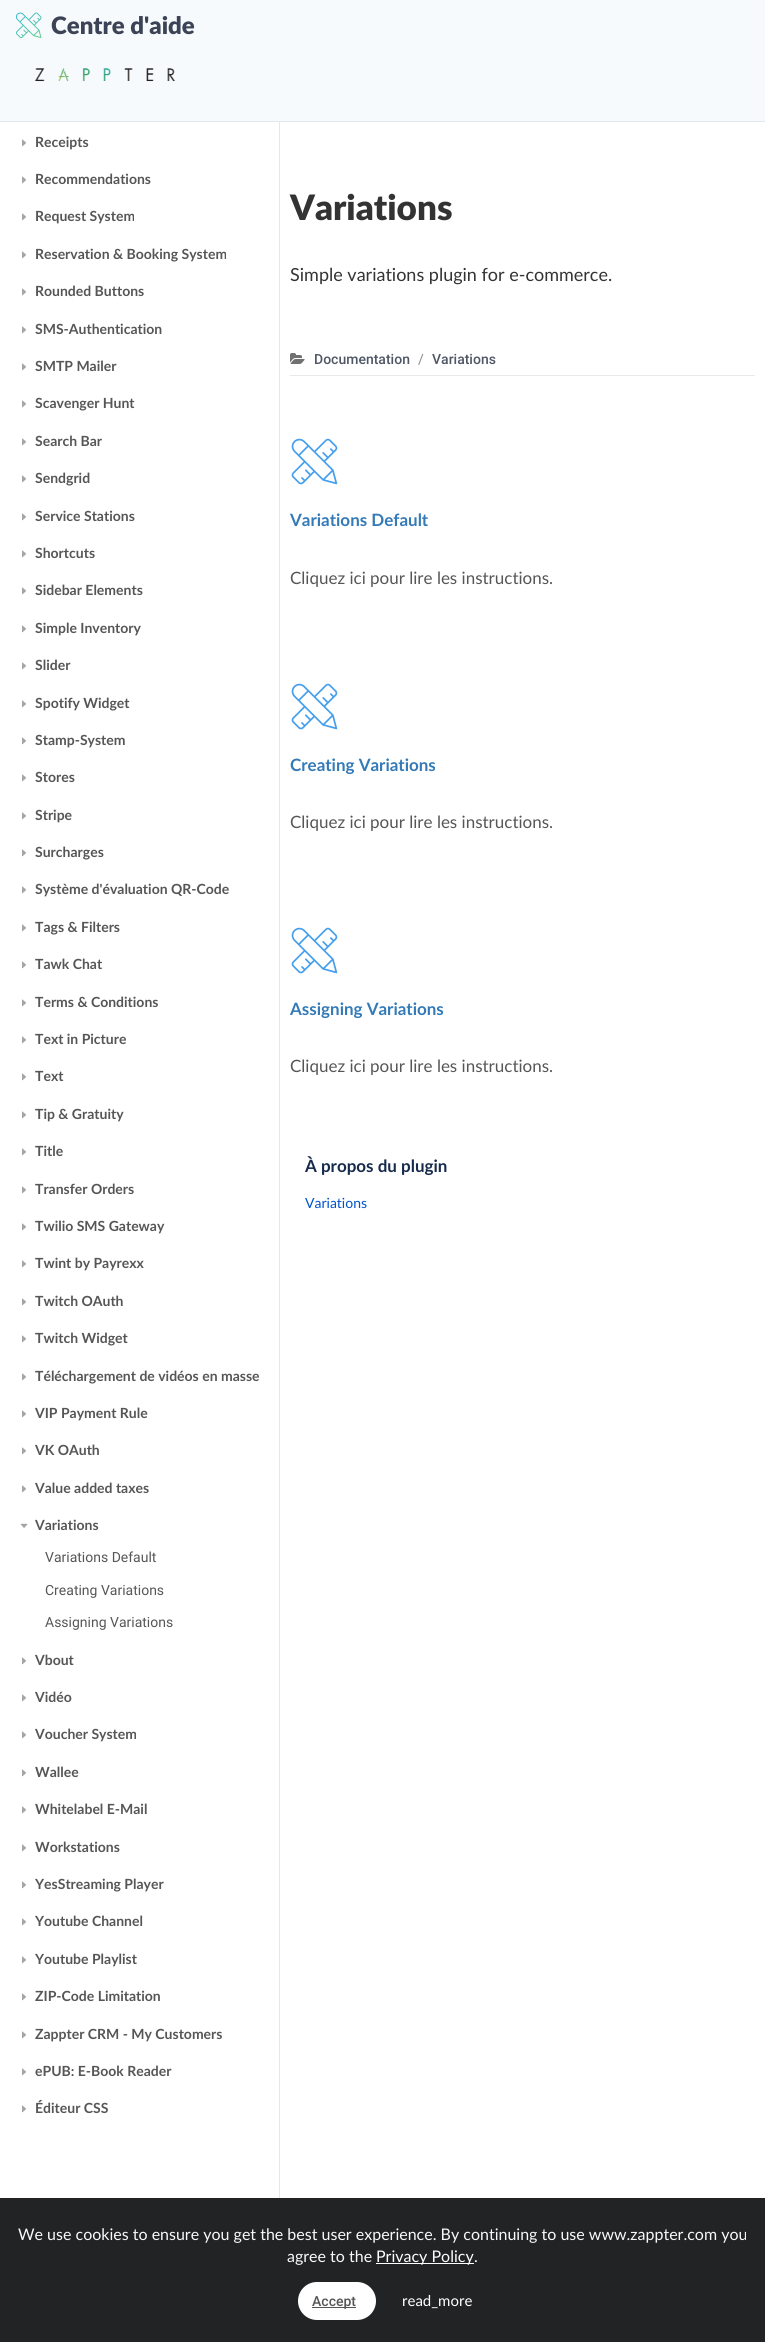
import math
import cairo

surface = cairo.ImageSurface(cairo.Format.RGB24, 765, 2342)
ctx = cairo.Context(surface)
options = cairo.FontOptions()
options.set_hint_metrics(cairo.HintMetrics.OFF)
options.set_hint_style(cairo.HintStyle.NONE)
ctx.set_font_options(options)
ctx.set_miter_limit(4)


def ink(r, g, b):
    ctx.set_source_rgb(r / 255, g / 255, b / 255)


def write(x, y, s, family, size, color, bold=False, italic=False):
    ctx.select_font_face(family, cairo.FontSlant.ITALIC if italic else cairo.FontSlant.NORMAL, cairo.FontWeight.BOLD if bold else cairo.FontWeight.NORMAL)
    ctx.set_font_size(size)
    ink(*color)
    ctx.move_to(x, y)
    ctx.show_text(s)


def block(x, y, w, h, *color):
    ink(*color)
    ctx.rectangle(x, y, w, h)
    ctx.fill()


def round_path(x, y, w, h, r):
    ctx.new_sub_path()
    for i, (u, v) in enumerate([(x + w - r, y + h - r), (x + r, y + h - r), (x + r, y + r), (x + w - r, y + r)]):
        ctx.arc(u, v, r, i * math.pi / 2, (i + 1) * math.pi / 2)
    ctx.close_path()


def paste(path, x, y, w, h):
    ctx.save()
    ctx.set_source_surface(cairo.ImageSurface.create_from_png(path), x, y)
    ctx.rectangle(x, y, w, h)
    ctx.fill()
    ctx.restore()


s1 = dict(family="Lato Black", size=24, color=(60, 67, 86))
s2 = dict(family="Lato", size=14, color=(86, 86, 86), bold=True)
s3 = dict(family="Roboto", size=14, color=(86, 86, 86))
s4 = dict(family="Lato Black", size=35, color=(51, 51, 51))
s5 = dict(family="Lato", size=18, color=(51, 51, 51))
s6 = dict(family="Roboto Medium", size=14, color=(79, 86, 102))
s7 = dict(family="Roboto", size=14, color=(136, 136, 136))
s8 = dict(family="Lato", size=17, color=(51, 122, 183), bold=True)
s9 = dict(family="Lato", size=17, color=(86, 86, 86))
s10 = dict(family="Lato", size=17, color=(23, 43, 77), bold=True)
s11 = dict(family="Lato", size=14, color=(0, 82, 204))
s12 = dict(family="Lato", size=16, color=(249, 249, 249))
s13 = dict(family="Lato", size=16, color=(255, 255, 255))
s14 = dict(family="Roboto Medium", size=14, color=(86, 86, 86))
s15 = dict(family="Lato", size=15, color=(255, 255, 255))

ink(255, 255, 255)
ctx.paint()
block(0, 0, 765, 121, 247, 250, 252)
block(0, 121, 765, 1, 227, 232, 238)
paste("pic1.png", 15, 12, 27, 27)
write(51, 34, "Centre d'aide", **s1)
paste("pic2.png", 34, 68, 141, 14)
block(279, 122, 1, 2076, 227, 232, 238)
paste("pic3.png", 22, 139, 4, 8)
write(35, 147, "Receipts", **s2)
paste("pic3.png", 22, 176, 4, 8)
write(35, 184, "Recommendations", **s2)
paste("pic3.png", 22, 213, 4, 8)
write(35, 221, "Request System", **s2)
paste("pic3.png", 22, 251, 4, 8)
write(35, 259, "Reservation & Booking System", **s2)
paste("pic3.png", 22, 288, 4, 8)
write(35, 296, "Rounded Buttons", **s2)
paste("pic3.png", 22, 326, 4, 8)
write(35, 334, "SMS-Authentication", **s2)
paste("pic3.png", 22, 363, 4, 8)
write(35, 371, "SMTP Mailer", **s2)
paste("pic3.png", 22, 400, 4, 8)
write(35, 408, "Scavenger Hunt", **s2)
paste("pic3.png", 22, 438, 4, 8)
write(35, 446, "Search Bar", **s2)
paste("pic3.png", 22, 475, 4, 8)
write(35, 483, "Sendgrid", **s2)
paste("pic3.png", 22, 513, 4, 8)
write(35, 521, "Service Stations", **s2)
paste("pic3.png", 22, 550, 4, 8)
write(35, 558, "Shortcuts", **s2)
paste("pic3.png", 22, 587, 4, 8)
write(35, 595, "Sidebar Elements", **s2)
paste("pic3.png", 22, 625, 4, 8)
write(35, 633, "Simple Inventory", **s2)
paste("pic3.png", 22, 662, 4, 8)
write(35, 670, "Slider", **s2)
paste("pic3.png", 22, 700, 4, 8)
write(35, 708, "Spotify Widget", **s2)
paste("pic3.png", 22, 737, 4, 8)
write(35, 745, "Stamp-System", **s2)
paste("pic3.png", 22, 774, 4, 8)
write(35, 782, "Stores", **s2)
paste("pic3.png", 22, 812, 4, 8)
write(35, 820, "Stripe", **s2)
paste("pic3.png", 22, 849, 4, 8)
write(35, 857, "Surcharges", **s2)
paste("pic3.png", 22, 886, 4, 8)
write(35, 894, "Système d'évaluation QR-Code", **s2)
paste("pic3.png", 22, 924, 4, 8)
write(35, 932, "Tags & Filters", **s2)
paste("pic3.png", 22, 961, 4, 8)
write(35, 969, "Tawk Chat", **s2)
paste("pic3.png", 22, 999, 4, 8)
write(35, 1007, "Terms & Conditions", **s2)
paste("pic3.png", 22, 1036, 4, 8)
write(35, 1044, "Text in Picture", **s2)
paste("pic3.png", 22, 1073, 4, 8)
write(35, 1081, "Text", **s2)
paste("pic3.png", 22, 1111, 4, 8)
write(35, 1119, "Tip & Gratuity", **s2)
paste("pic3.png", 22, 1148, 4, 8)
write(35, 1156, "Title", **s2)
paste("pic3.png", 22, 1186, 4, 8)
write(35, 1194, "Transfer Orders", **s2)
paste("pic3.png", 22, 1223, 4, 8)
write(35, 1231, "Twilio SMS Gateway", **s2)
paste("pic3.png", 22, 1260, 4, 8)
write(35, 1268, "Twint by Payrexx", **s2)
paste("pic3.png", 22, 1298, 4, 8)
write(35, 1306, "Twitch OAuth", **s2)
paste("pic3.png", 22, 1335, 4, 8)
write(35, 1343, "Twitch Widget", **s2)
paste("pic3.png", 22, 1373, 4, 8)
write(35, 1381, "Téléchargement de vidéos en masse", **s2)
paste("pic3.png", 22, 1410, 4, 8)
write(35, 1418, "VIP Payment Rule", **s2)
paste("pic3.png", 22, 1447, 4, 8)
write(35, 1455, "VK OAuth", **s2)
paste("pic3.png", 22, 1485, 4, 8)
write(35, 1493, "Value added taxes", **s2)
paste("pic4.png", 20, 1523, 8, 5)
write(35, 1530, "Variations", **s2)
write(45, 1562, "Variations Default", **s3)
write(45, 1595, "Creating Variations", **s3)
write(45, 1627, "Assigning Variations", **s3)
paste("pic3.png", 22, 1657, 4, 8)
write(35, 1665, "Vbout", **s2)
paste("pic3.png", 22, 1694, 4, 8)
write(35, 1702, "Vidéo", **s2)
paste("pic3.png", 22, 1731, 4, 8)
write(35, 1739, "Voucher System", **s2)
paste("pic3.png", 22, 1769, 4, 8)
write(35, 1777, "Wallee", **s2)
paste("pic3.png", 22, 1806, 4, 8)
write(35, 1814, "Whitelabel E-Mail", **s2)
paste("pic3.png", 22, 1844, 4, 8)
write(35, 1852, "Workstations", **s2)
paste("pic3.png", 22, 1881, 4, 8)
write(35, 1889, "YesStreaming Player", **s2)
paste("pic3.png", 22, 1918, 4, 8)
write(35, 1926, "Youtube Channel", **s2)
paste("pic3.png", 22, 1956, 4, 8)
write(35, 1964, "Youtube Playlist", **s2)
paste("pic3.png", 22, 1993, 4, 8)
write(35, 2001, "ZIP-Code Limitation", **s2)
paste("pic3.png", 22, 2031, 4, 8)
write(35, 2039, "Zappter CRM - My Customers", **s2)
paste("pic3.png", 22, 2068, 4, 8)
write(35, 2076, "ePUB: E-Book Reader", **s2)
paste("pic3.png", 22, 2105, 4, 8)
write(35, 2113, "Éditeur CSS", **s2)
write(290, 220, "Variations", **s4)
write(290, 281, "Simple variations plugin for e-commerce.", **s5)
block(290, 375, 465, 1, 232, 232, 232)
paste("pic5.png", 290, 353, 15, 11)
write(314, 364, "Documentation", **s6)
write(418, 364, "/", **s7)
write(432, 364, "Variations", **s6)
paste("pic6.png", 291, 438, 47, 47)
write(290, 526, "Variations Default", **s8)
write(290, 584, "Cliquez ici pour lire les instructions.", **s9)
paste("pic6.png", 291, 683, 47, 47)
write(290, 771, "Creating Variations", **s8)
write(290, 828, "Cliquez ici pour lire les instructions.", **s9)
paste("pic6.png", 291, 927, 47, 47)
write(290, 1015, "Assigning Variations", **s8)
write(290, 1072, "Cliquez ici pour lire les instructions.", **s9)
write(305, 1172, "À propos du plugin", **s10)
write(305, 1208, "Variations", **s11)
block(0, 2198, 765, 144, 33, 35, 37)
write(18, 2240, "We use cookies to ensure you get the best user experience. By continuing to use www.zappter.com you", **s12)
write(287, 2262, "agree to the", **s12)
block(376, 2263, 98, 1, 255, 255, 255)
write(376, 2262, "Privacy Policy", **s13)
write(474, 2262, ".", **s12)
ink(255, 255, 255)
round_path(298, 2282, 78, 38, 19)
ctx.fill()
block(312, 2307, 44, 1, 85, 85, 85)
write(312, 2306, "Accept", **s14)
write(402, 2306, "read_more", **s15)
surface.write_to_png("screenshot.png")
